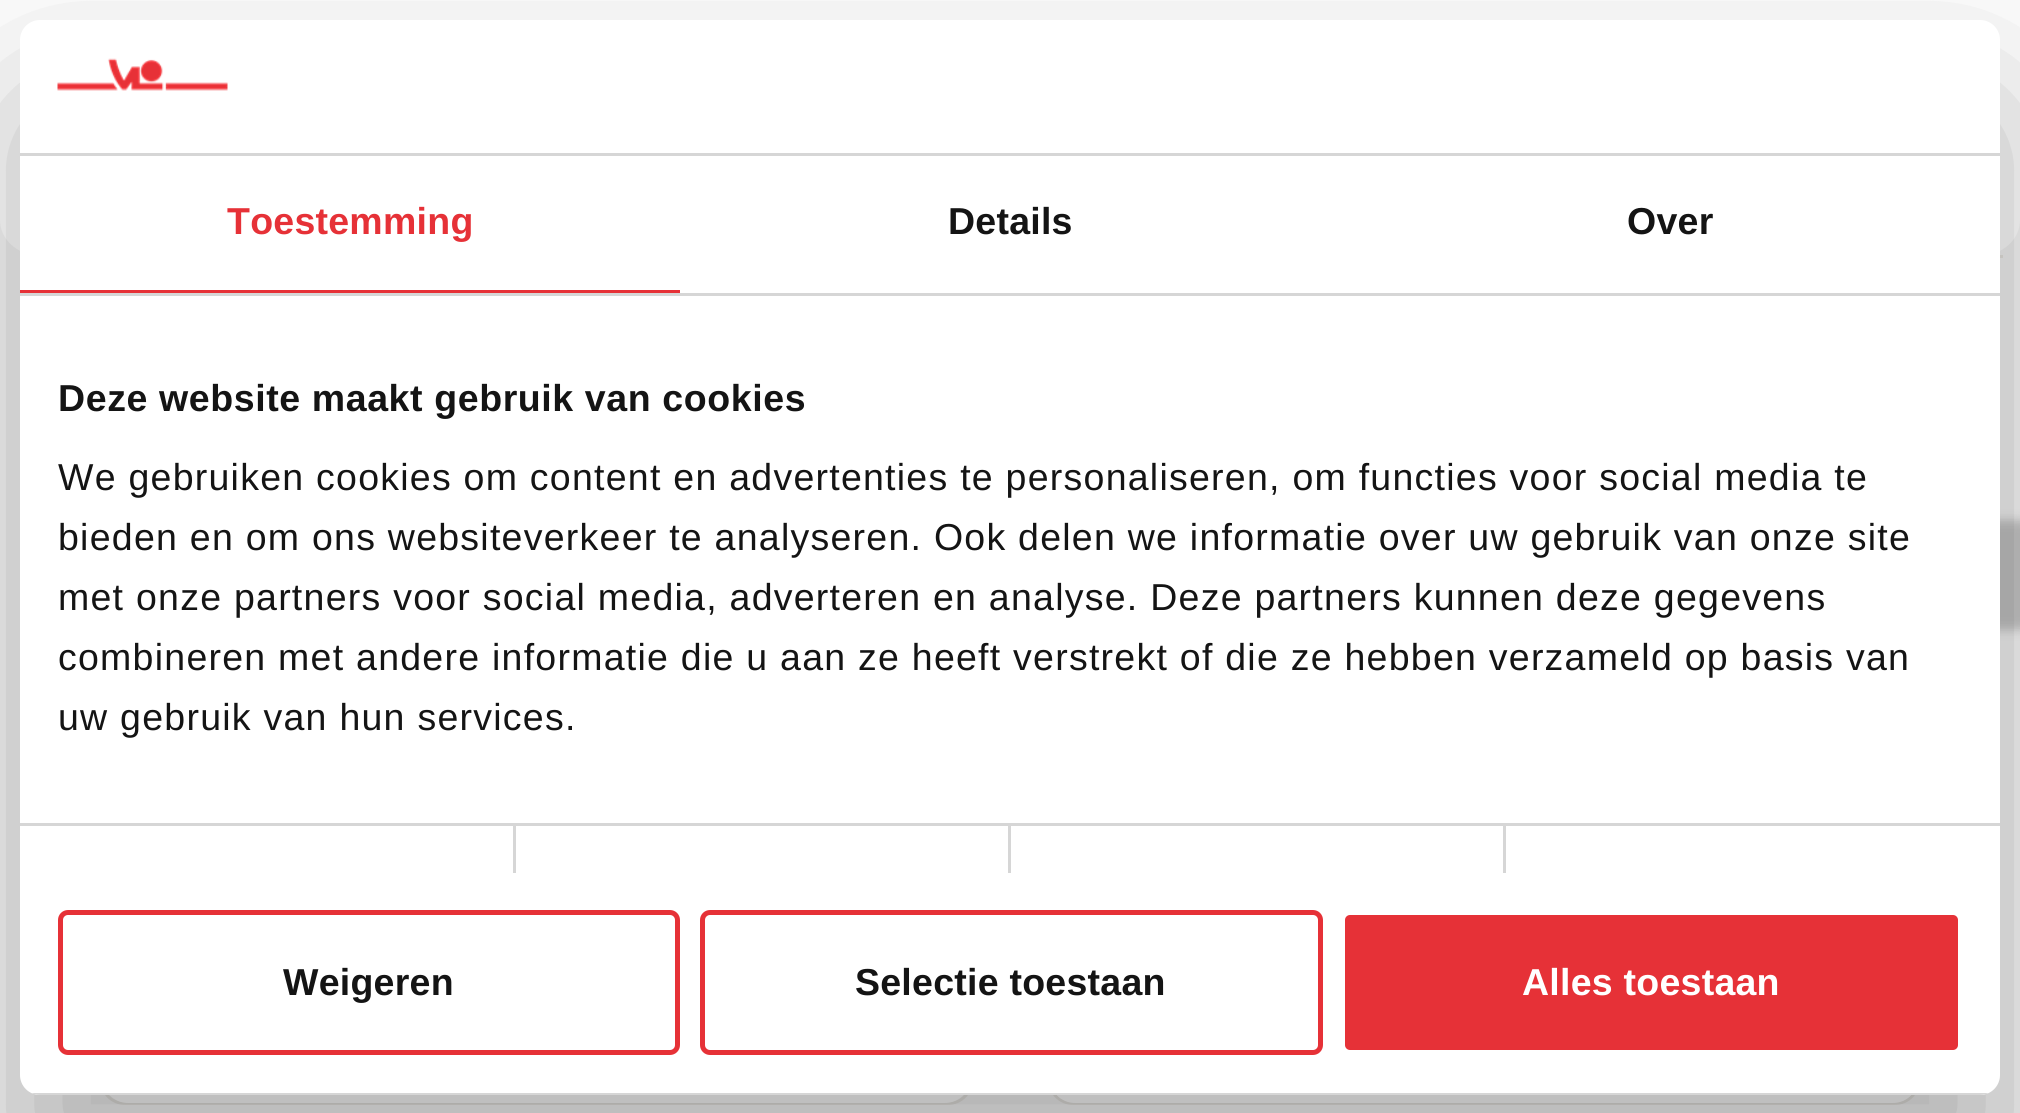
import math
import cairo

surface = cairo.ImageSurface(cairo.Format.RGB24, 2020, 1113)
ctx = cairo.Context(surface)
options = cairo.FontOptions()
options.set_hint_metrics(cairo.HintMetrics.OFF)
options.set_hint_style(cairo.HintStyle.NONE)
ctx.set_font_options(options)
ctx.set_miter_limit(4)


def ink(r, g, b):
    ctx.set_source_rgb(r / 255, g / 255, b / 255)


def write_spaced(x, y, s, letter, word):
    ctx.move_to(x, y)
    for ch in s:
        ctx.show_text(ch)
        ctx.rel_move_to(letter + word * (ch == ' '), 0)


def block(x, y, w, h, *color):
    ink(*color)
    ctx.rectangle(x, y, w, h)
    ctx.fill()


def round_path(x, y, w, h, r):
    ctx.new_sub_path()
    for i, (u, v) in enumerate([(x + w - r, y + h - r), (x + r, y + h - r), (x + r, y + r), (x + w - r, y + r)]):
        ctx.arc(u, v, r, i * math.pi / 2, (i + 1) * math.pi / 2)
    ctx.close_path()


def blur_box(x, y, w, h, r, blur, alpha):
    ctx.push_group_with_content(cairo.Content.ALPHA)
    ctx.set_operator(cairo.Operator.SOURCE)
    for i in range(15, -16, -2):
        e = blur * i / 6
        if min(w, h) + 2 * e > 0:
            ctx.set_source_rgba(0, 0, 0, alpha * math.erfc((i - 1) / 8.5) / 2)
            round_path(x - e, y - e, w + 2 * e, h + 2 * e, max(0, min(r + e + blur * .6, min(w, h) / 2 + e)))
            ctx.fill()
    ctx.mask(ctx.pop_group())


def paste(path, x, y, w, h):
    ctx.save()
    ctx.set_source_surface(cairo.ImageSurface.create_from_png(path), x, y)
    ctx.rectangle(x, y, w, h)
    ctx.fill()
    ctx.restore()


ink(245, 245, 245)
ctx.paint()
ink(255, 255, 255)
ctx.new_path()
ctx.move_to(0, 0)
ctx.line_to(2020, 0)
ctx.line_to(2020, 220)
ctx.curve_to(2020, 239, 2003, 255, 1982, 255)
ctx.line_to(38, 255)
ctx.curve_to(17, 255, 0, 239, 0, 220)
ctx.close_path()
ctx.fill()
block(2000, 255, 3, 3, 231, 229, 225)
round_path(101.5, 696.5, 870, 407, 23.5)
ctx.set_line_width(3)
ctx.stroke()
ink(255, 255, 255)
round_path(103, 698, 867, 405, 25)
ctx.fill()
round_path(1049.5, 696.5, 869, 407, 23.5)
ink(231, 229, 225)
ctx.stroke()
ink(255, 255, 255)
round_path(1050, 698, 868, 405, 25)
ctx.fill()
ink(0, 0, 0)
blur_box(20, 100, 1980, 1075, 20, 85, 0.3)
blur_box(1768, 520, 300, 110, 55, 5, 0.2)
ink(255, 255, 255)
round_path(20, 20, 1980, 1075, 20)
ctx.fill()
block(20, 153, 1980, 3, 214, 214, 214)
paste("pic1.png", 57, 58, 171, 33)
block(20, 293, 1980, 3, 214, 214, 214)
block(20, 290, 660, 3, 230, 49, 55)
ctx.select_font_face("Liberation Sans", cairo.FontSlant.NORMAL, cairo.FontWeight.BOLD)
ctx.set_font_size(37.5)
write_spaced(227, 234, "Toestemming", 0.25, 0)
ink(20, 20, 20)
write_spaced(948, 234, "Details", 0.25, 0)
write_spaced(1627, 234, "Over", 0.25, 0)
block(513, 825, 3, 48, 214, 214, 214)
block(1008, 825, 3, 48, 214, 214, 214)
block(1503, 825, 3, 48, 214, 214, 214)
block(20, 823, 1980, 3, 214, 214, 214)
ink(20, 20, 20)
write_spaced(58, 411, "Deze website maakt gebruik van cookies", 0.6, 0)
ctx.select_font_face("Liberation Sans")
write_spaced(58, 490, "We gebruiken cookies om content en advertenties te personaliseren, om functies voor social media te", 1.25, 0)
write_spaced(58, 550, "bieden en om ons websiteverkeer te analyseren. Ook delen we informatie over uw gebruik van onze site", 1.25, 0)
write_spaced(58, 610, "met onze partners voor social media, adverteren en analyse. Deze partners kunnen deze gegevens", 1.25, 0)
write_spaced(58, 670, "combineren met andere informatie die u aan ze heeft verstrekt of die ze hebben verzameld op basis van", 1.25, 0)
write_spaced(58, 730, "uw gebruik van hun services.", 1.25, 0)
ctx.save()
round_path(20, 20, 1980, 1075, 20)
ctx.clip()
block(31, 1093, 1958, 2, 214, 214, 214)
ctx.restore()
round_path(60.5, 912.5, 617, 140, 7.5)
ink(230, 49, 55)
ctx.set_line_width(5)
ctx.stroke()
ctx.select_font_face("Liberation Sans", cairo.FontSlant.NORMAL, cairo.FontWeight.BOLD)
ink(20, 20, 20)
write_spaced(283, 995, "Weigeren", 0.25, 0)
round_path(702.5, 912.5, 618, 140, 7.5)
ink(230, 49, 55)
ctx.stroke()
ink(20, 20, 20)
write_spaced(855, 995, "Selectie toestaan", 0.25, 0)
ink(230, 49, 55)
round_path(1342.5, 912.5, 618, 140, 7.5)
ctx.fill_preserve()
ink(255, 255, 255)
ctx.stroke()
write_spaced(1522, 995, "Alles toestaan", 0.25, 0)
surface.write_to_png("screenshot.png")
